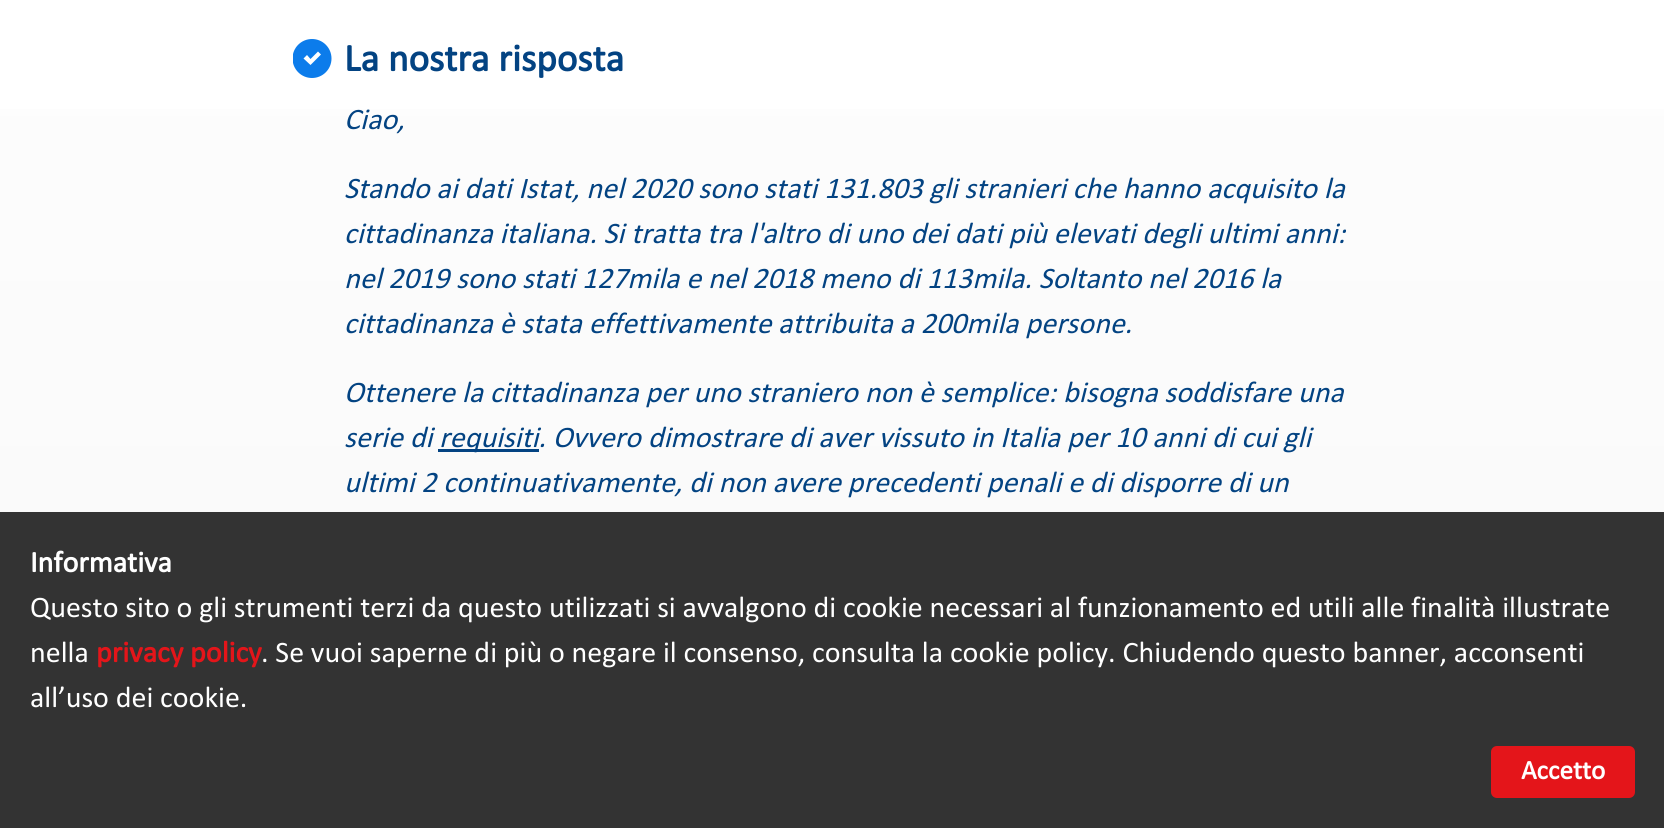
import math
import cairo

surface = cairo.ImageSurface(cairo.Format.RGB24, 1664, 828)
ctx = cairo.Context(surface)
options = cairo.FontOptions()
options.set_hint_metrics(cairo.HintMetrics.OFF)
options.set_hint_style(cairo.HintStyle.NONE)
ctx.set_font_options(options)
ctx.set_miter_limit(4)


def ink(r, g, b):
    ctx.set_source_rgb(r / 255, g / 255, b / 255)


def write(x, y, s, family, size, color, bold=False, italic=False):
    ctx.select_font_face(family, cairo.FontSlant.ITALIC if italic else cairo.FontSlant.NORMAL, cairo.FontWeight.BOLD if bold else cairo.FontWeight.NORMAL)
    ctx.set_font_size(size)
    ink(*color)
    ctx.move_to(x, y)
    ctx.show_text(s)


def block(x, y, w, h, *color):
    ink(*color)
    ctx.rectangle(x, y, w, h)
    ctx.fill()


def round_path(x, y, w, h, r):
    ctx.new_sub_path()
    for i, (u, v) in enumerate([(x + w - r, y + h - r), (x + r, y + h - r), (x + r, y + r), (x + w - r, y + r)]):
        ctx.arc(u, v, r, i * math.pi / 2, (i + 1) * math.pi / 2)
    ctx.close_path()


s1 = dict(family="Calibri", size=39, color=(3, 67, 130), bold=True)
s2 = dict(family="Calibri", size=30, color=(3, 67, 130), italic=True)
s3 = dict(family="Calibri", size=30, color=(255, 255, 255), bold=True)
s4 = dict(family="Calibri", size=30, color=(255, 255, 255))
s5 = dict(family="Calibri", size=30, color=(228, 21, 26), bold=True)
s6 = dict(family="Calibri", size=27, color=(255, 255, 255), bold=True)

ink(255, 255, 255)
ctx.paint()
gradient = cairo.LinearGradient(833, -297, 833, 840)
gradient.add_color_stop_rgba(0, 1, 1, 1, 1)
gradient.add_color_stop_rgba(1, 0.973, 0.973, 0.973, 1)
ctx.set_source(gradient)
ctx.rectangle(0, 109, 1664, 403)
ctx.fill()
ctx.save()
ctx.rectangle(293, 39, 39, 39)
ctx.clip()
ink(12, 124, 235)
ctx.arc(312, 58.5, 19.5, 0, 2 * math.pi)
ctx.fill()
ctx.restore()
ink(255, 255, 255)
ctx.new_path()
ctx.move_to(310.5, 59)
ctx.line_to(307, 55)
ctx.line_to(303.5, 58.5)
ctx.line_to(310.5, 65)
ctx.line_to(321, 54.5)
ctx.line_to(318, 51.5)
ctx.close_path()
ctx.fill()
write(344, 71, "La nostra risposta", **s1)
write(344, 129, "Ciao,", **s2)
write(344, 198, "Stando ai dati Istat, nel 2020 sono stati 131.803 gli stranieri che hanno acquisito la", **s2)
write(344, 243, "cittadinanza italiana. Si tratta tra l'altro di uno dei dati più elevati degli ultimi anni:", **s2)
write(344, 288, "nel 2019 sono stati 127mila e nel 2018 meno di 113mila. Soltanto nel 2016 la", **s2)
write(344, 333, "cittadinanza è stata effettivamente attribuita a 200mila persone.", **s2)
write(344, 402, "Ottenere la cittadinanza per uno straniero non è semplice: bisogna soddisfare una", **s2)
write(344, 447, "serie di", **s2)
block(438, 449, 101, 3, 3, 67, 130)
write(439, 447, "requisiti. Ovvero dimostrare di aver vissuto in Italia per 10 anni di cui gli", **s2)
write(344, 492, "ultimi 2 continuativamente, di non avere precedenti penali e di disporre di un", **s2)
block(0, 512, 1664, 316, 51, 51, 51)
write(30, 572, "Informativa", **s3)
write(30, 617, "Questo sito o gli strumenti terzi da questo utilizzati si avvalgono di cookie necessari al funzionamento ed utili alle finalità illustrate", **s4)
write(30, 662, "nella", **s4)
write(96, 662, "privacy policy", **s5)
write(261, 662, ". Se vuoi saperne di più o negare il consenso, consulta la cookie policy. Chiudendo questo banner, acconsenti", **s4)
write(30, 707, "all’uso dei cookie.", **s4)
ink(228, 21, 26)
round_path(1491, 746, 144, 52, 6)
ctx.fill()
write(1521, 779, "Accetto", **s6)
surface.write_to_png("screenshot.png")
